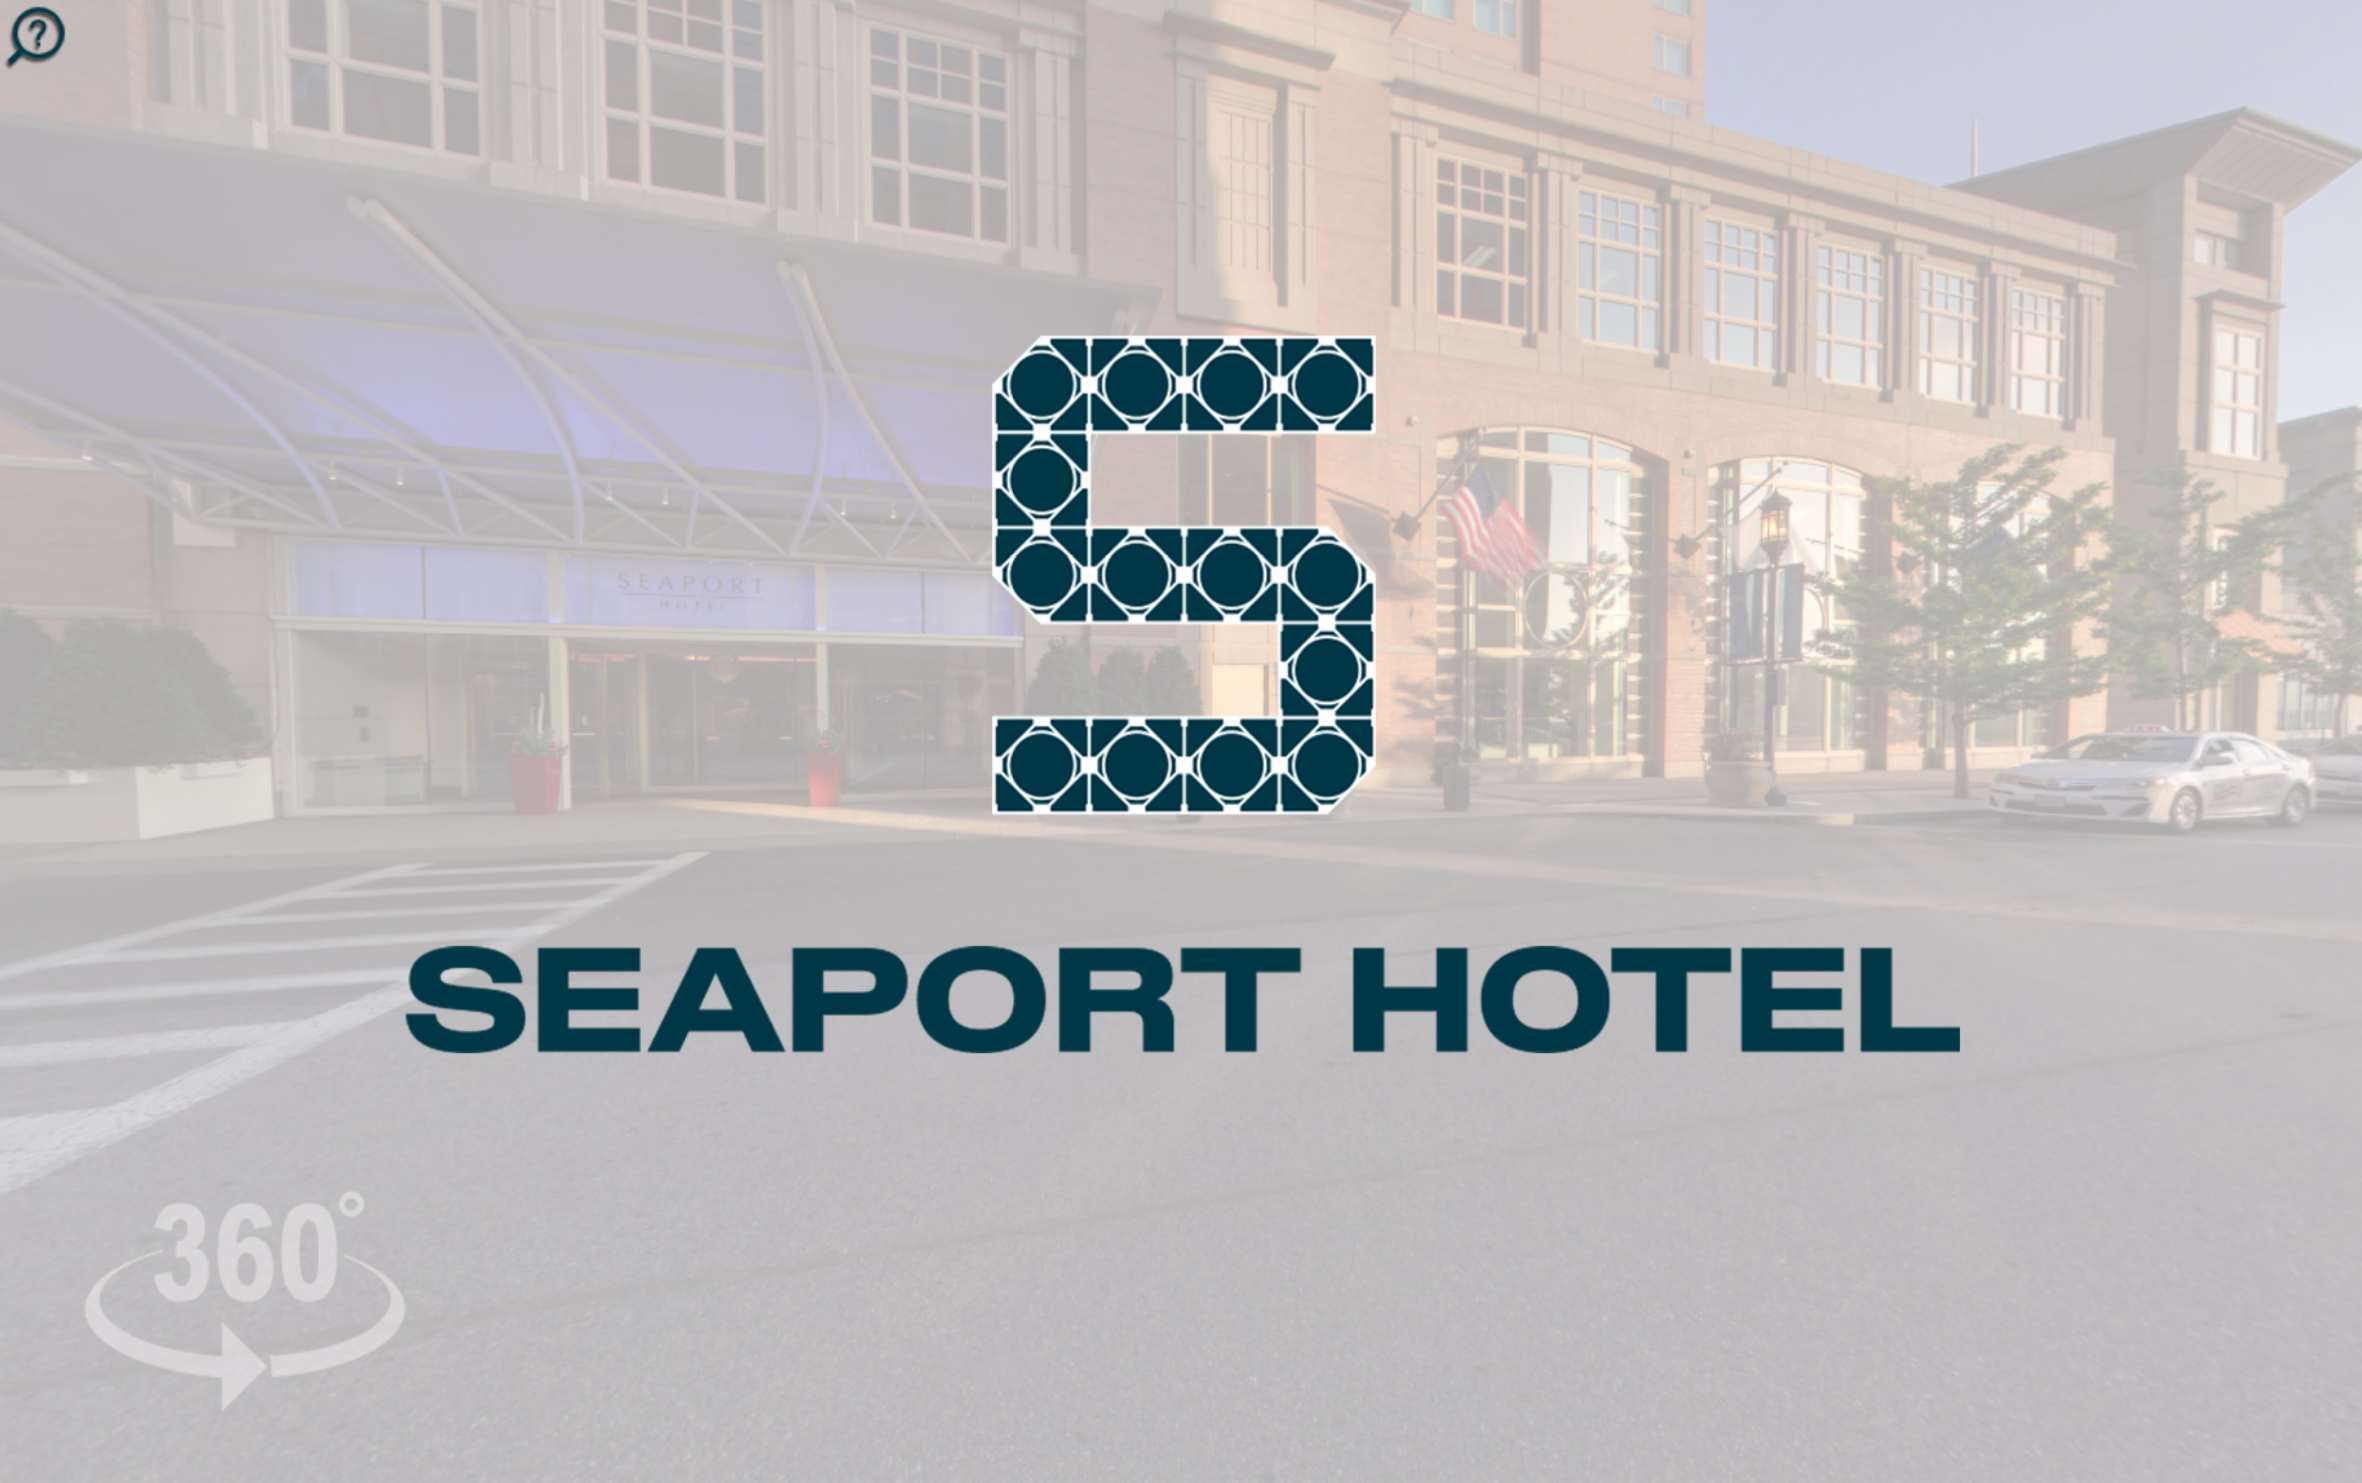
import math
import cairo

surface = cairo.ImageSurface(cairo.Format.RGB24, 2362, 1483)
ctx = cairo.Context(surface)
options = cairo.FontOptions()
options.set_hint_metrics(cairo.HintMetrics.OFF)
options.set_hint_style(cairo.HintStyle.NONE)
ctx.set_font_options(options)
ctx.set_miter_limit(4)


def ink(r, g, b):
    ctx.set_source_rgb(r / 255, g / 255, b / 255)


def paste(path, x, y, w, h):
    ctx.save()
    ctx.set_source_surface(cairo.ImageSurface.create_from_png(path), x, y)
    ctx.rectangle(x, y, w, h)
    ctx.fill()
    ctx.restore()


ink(255, 255, 255)
ctx.paint()
paste("pic1.png", 0, 0, 2362, 1483)
paste("pic2.png", 405, 335, 1556, 719)
paste("pic3.png", 83, 1190, 324, 222)
paste("pic4.png", 4, 6, 62, 64)
surface.write_to_png("screenshot.png")
